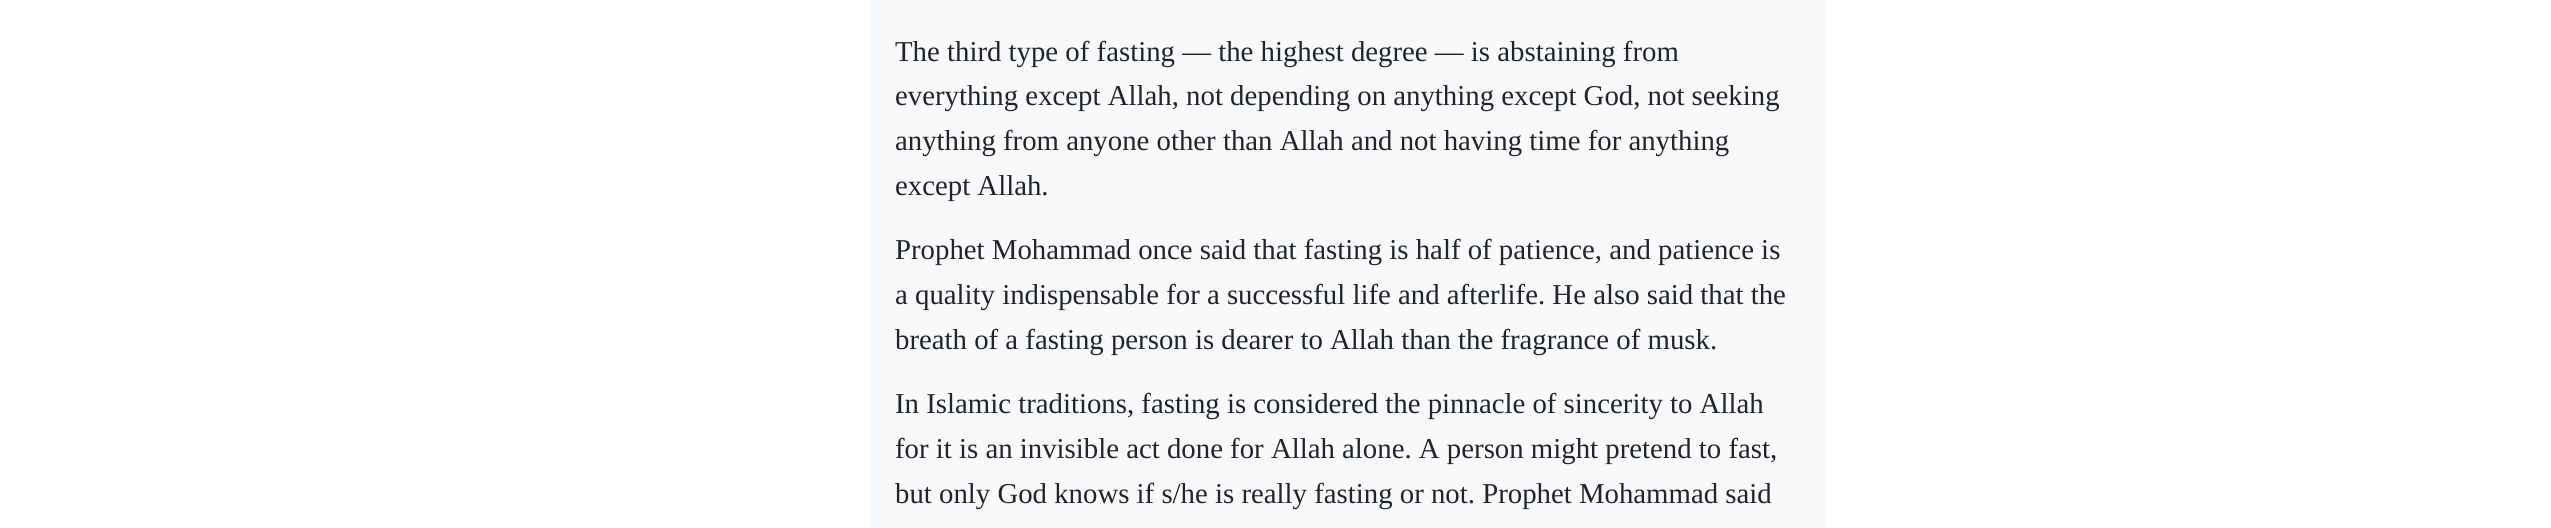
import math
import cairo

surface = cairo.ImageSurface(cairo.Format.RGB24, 2551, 528)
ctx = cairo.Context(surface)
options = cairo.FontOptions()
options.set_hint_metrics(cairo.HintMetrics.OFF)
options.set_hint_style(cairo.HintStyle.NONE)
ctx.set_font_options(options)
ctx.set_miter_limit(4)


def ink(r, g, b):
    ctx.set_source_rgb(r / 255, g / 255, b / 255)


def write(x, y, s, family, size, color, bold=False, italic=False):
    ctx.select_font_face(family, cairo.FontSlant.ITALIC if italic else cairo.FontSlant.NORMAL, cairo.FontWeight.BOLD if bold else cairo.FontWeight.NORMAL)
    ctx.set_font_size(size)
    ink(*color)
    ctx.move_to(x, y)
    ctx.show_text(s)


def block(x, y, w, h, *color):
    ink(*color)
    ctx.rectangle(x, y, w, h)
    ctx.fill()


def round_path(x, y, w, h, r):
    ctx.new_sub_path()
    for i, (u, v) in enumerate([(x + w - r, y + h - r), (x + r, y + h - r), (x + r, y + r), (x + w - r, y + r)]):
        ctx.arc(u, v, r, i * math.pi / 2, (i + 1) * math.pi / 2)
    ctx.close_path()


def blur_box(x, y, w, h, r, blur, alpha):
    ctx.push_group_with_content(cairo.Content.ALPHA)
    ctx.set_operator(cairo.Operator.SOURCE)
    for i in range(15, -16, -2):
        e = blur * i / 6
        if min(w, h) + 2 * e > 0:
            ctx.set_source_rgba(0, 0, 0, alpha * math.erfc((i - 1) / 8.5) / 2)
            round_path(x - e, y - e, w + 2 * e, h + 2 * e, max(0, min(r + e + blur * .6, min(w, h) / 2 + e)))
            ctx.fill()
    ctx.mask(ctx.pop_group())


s1 = dict(family="Liberation Serif", size=28.8, color=(33, 37, 41))

ink(255, 255, 255)
ctx.paint()
ink(0, 0, 0)
blur_box(872, -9, 952, 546, 0, 3, 0.07)
block(872, 0, 952, 528, 248, 249, 250)
write(895, 61, "The third type of fasting — the highest degree — is abstaining from", **s1)
write(895, 105, "everything except Allah, not depending on anything except God, not seeking", **s1)
write(895, 150, "anything from anyone other than Allah and not having time for anything", **s1)
write(895, 195, "except Allah.", **s1)
write(895, 259, "Prophet Mohammad once said that fasting is half of patience, and patience is", **s1)
write(895, 304, "a quality indispensable for a successful life and afterlife. He also said that the", **s1)
write(895, 349, "breath of a fasting person is dearer to Allah than the fragrance of musk.", **s1)
write(895, 413, "In Islamic traditions, fasting is considered the pinnacle of sincerity to Allah", **s1)
write(895, 458, "for it is an invisible act done for Allah alone. A person might pretend to fast,", **s1)
write(895, 503, "but only God knows if s/he is really fasting or not. Prophet Mohammad said", **s1)
surface.write_to_png("screenshot.png")
